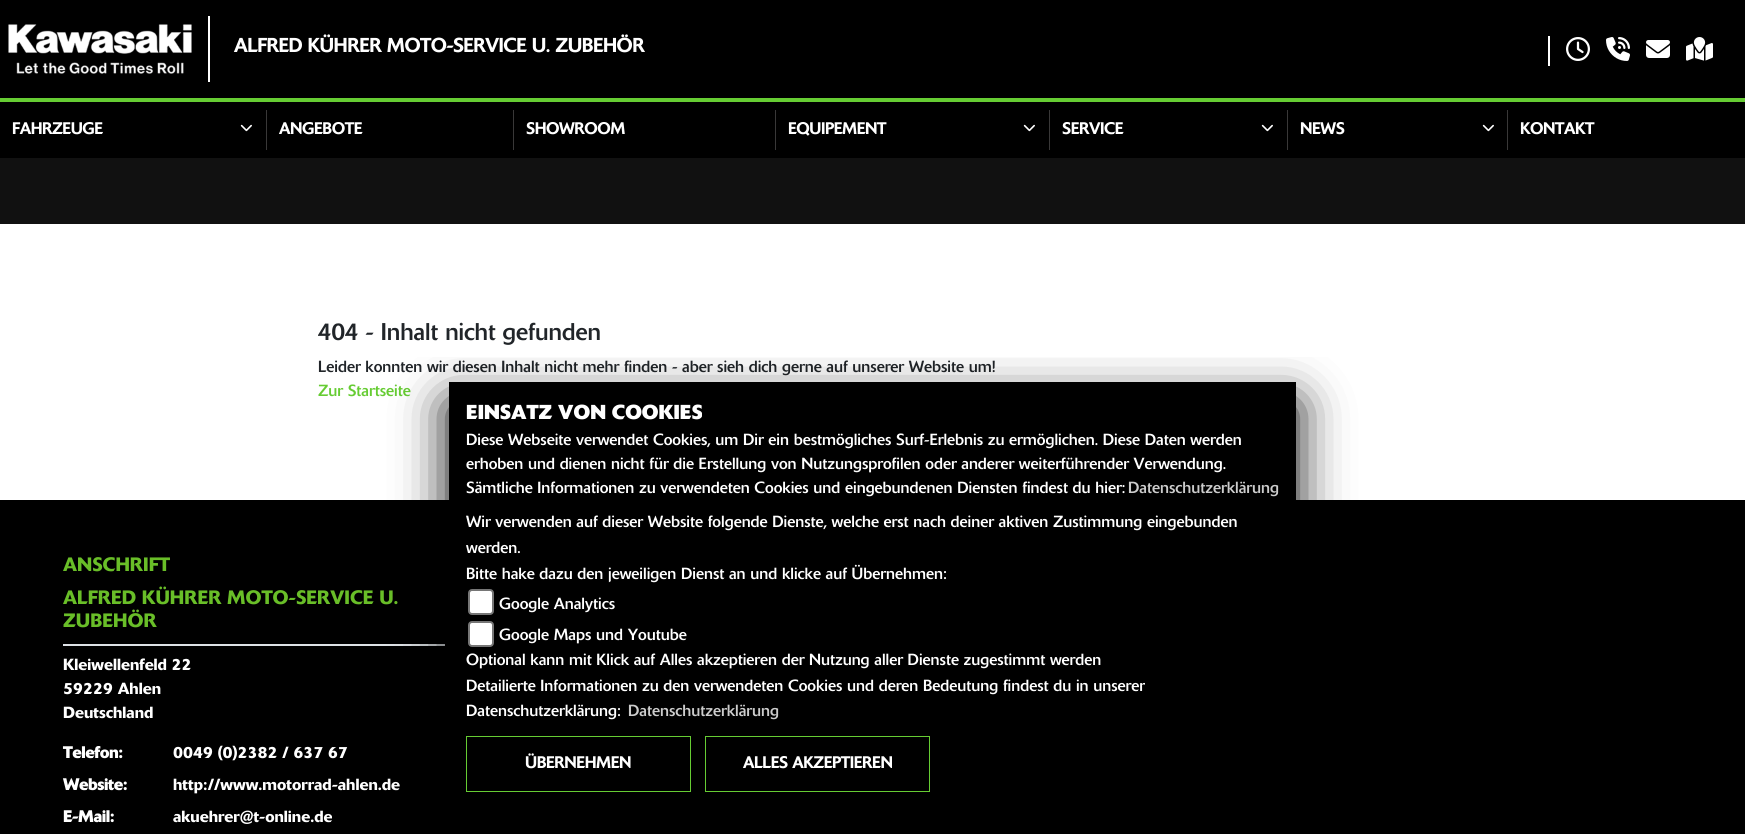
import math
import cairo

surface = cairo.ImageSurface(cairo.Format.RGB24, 1745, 834)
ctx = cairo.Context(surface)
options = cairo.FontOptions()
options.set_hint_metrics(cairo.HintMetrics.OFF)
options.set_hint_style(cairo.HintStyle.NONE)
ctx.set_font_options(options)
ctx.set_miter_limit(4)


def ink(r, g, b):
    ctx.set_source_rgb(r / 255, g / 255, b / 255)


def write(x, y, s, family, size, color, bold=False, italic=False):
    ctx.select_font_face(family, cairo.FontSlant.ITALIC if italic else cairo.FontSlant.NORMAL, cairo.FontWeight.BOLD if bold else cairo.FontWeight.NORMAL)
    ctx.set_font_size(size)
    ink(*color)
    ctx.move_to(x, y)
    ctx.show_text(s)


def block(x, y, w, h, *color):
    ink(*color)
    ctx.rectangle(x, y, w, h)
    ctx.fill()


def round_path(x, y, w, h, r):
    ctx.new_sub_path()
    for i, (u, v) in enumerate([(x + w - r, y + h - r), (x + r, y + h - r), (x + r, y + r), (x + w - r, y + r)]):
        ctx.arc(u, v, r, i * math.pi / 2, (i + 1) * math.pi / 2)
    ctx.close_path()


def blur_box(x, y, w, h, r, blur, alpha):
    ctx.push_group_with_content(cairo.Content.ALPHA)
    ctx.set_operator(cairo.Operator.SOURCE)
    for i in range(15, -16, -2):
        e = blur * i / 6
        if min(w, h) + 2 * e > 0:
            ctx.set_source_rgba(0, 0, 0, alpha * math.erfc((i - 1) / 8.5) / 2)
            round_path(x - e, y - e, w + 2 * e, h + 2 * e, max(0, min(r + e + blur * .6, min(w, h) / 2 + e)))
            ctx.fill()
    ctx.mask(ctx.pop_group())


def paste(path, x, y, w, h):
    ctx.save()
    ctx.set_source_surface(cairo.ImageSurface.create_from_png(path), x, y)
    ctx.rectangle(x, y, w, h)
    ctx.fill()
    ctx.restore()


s1 = dict(family="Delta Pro", size=19.2, color=(255, 255, 255), bold=True)
s2 = dict(family="Delta Pro", size=16, color=(255, 255, 255), bold=True)
s3 = dict(family="Delta Pro", size=24, color=(33, 37, 41))
s4 = dict(family="Delta Pro", size=16, color=(33, 37, 41))
s5 = dict(family="Delta Pro", size=16, color=(102, 204, 51))
s6 = dict(family="Delta Pro Medium", size=19.2, color=(105, 190, 40))
s7 = dict(family="Delta Pro Medium", size=16, color=(255, 255, 255))
s8 = dict(family="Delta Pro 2", size=16, color=(255, 255, 255), bold=True)
s9 = dict(family="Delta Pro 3", size=20, color=(255, 255, 255), bold=True)
s10 = dict(family="Delta Pro", size=16, color=(255, 255, 255))
s11 = dict(family="Delta Pro", size=16, color=(204, 204, 204))

ink(255, 255, 255)
ctx.paint()
block(0, 0, 1745, 158, 0, 0, 0)
block(0, 98, 1745, 4, 102, 204, 51)
paste("pic1.png", 8, 24, 184, 50)
block(208, 16, 2, 66, 255, 255, 255)
write(234, 52, "ALFRED KÜHRER MOTO-SERVICE U. ZUBEHÖR", **s1)
block(1548, 36, 2, 30, 255, 255, 255)
paste("pic2.png", 1566, 37, 24, 24)
paste("pic3.png", 1606, 37, 24, 24)
paste("pic4.png", 1646, 40, 24, 18)
paste("pic5.png", 1686, 37, 27, 24)
block(266, 110, 1, 40, 57, 56, 56)
write(12, 134, "FAHRZEUGE", **s2)
paste("pic6.png", 240, 124, 12, 8)
block(513, 110, 1, 40, 57, 56, 56)
write(279, 134, "ANGEBOTE", **s2)
block(775, 110, 1, 40, 57, 56, 56)
write(526, 134, "SHOWROOM", **s2)
block(1049, 110, 1, 40, 57, 56, 56)
write(788, 134, "EQUIPEMENT", **s2)
paste("pic6.png", 1023, 124, 12, 8)
block(1287, 110, 1, 40, 57, 56, 56)
write(1062, 134, "SERVICE", **s2)
paste("pic6.png", 1261, 124, 12, 8)
block(1507, 110, 1, 40, 57, 56, 56)
write(1300, 134, "NEWS", **s2)
paste("pic6.png", 1482, 124, 12, 8)
write(1520, 134, "KONTAKT", **s2)
block(0, 158, 1745, 66, 17, 17, 17)
write(318, 340, "404 - Inhalt nicht gefunden", **s3)
write(318, 372, "Leider konnten wir diesen Inhalt nicht mehr finden - aber sieh dich gerne auf unserer Website um!", **s4)
write(318, 396, "Zur Startseite", **s5)
block(0, 500, 1745, 334, 0, 0, 0)
write(63, 571, "ANSCHRIFT", **s6)
write(63, 604, "ALFRED KÜHRER MOTO-SERVICE U.", **s6)
write(63, 627, "ZUBEHÖR", **s6)
block(63, 644, 382, 2, 222, 226, 230)
write(63, 670, "Kleiwellenfeld 22", **s7)
write(63, 694, "59229 Ahlen", **s7)
write(63, 718, "Deutschland", **s7)
write(63, 758, "Telefon:", **s8)
write(173, 758, "0049 (0)2382 / 637 67", **s7)
write(63, 790, "Website:", **s8)
write(173, 790, "http://www.motorrad-ahlen.de", **s7)
write(63, 822, "E-Mail:", **s8)
write(173, 822, "akuehrer@t-online.de", **s7)
ctx.save()
ctx.rectangle(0, 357, 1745, 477)
ctx.clip()
ink(0, 0, 0)
blur_box(449, 404, 847, 427, 0, 25, 1)
ctx.restore()
block(449, 382, 847, 118, 0, 0, 0)
write(466, 419, "EINSATZ VON COOKIES", **s9)
write(466, 445, "Diese Webseite verwendet Cookies, um Dir ein bestmögliches Surf-Erlebnis zu ermöglichen. Diese Daten werden", **s10)
write(466, 469, "erhoben und dienen nicht für die Erstellung von Nutzungsprofilen oder anderer weiterführender Verwendung.", **s10)
write(466, 493, "Sämtliche Informationen zu verwendeten Cookies und eingebundenen Diensten findest du hier:", **s10)
write(1128, 493, "Datenschutzerklärung", **s11)
write(466, 527, "Wir verwenden auf dieser Website folgende Dienste, welche erst nach deiner aktiven Zustimmung eingebunden", **s10)
write(466, 553, "werden.", **s10)
write(466, 579, "Bitte hake dazu den jeweiligen Dienst an und klicke auf Übernehmen:", **s10)
round_path(469, 590, 24, 24, 3)
ctx.fill_preserve()
ink(118, 118, 118)
ctx.stroke()
write(499, 609, "Google Analytics", **s10)
round_path(469, 622, 24, 24, 3)
ctx.fill_preserve()
ink(118, 118, 118)
ctx.stroke()
write(499, 640, "Google Maps und Youtube", **s10)
write(466, 665, "Optional kann mit Klick auf Alles akzeptieren der Nutzung aller Dienste zugestimmt werden", **s10)
write(466, 691, "Detailierte Informationen zu den verwendeten Cookies und deren Bedeutung findest du in unserer", **s10)
write(466, 716, "Datenschutzerklärung:", **s10)
write(628, 716, "Datenschutzerklärung", **s11)
ctx.rectangle(466.5, 736.5, 224, 55)
ink(102, 204, 51)
ctx.set_line_width(1)
ctx.stroke()
write(525, 768, "ÜBERNEHMEN", **s2)
ctx.rectangle(705.5, 736.5, 224, 55)
ink(102, 204, 51)
ctx.stroke()
write(743, 768, "ALLES AKZEPTIEREN", **s2)
surface.write_to_png("screenshot.png")
